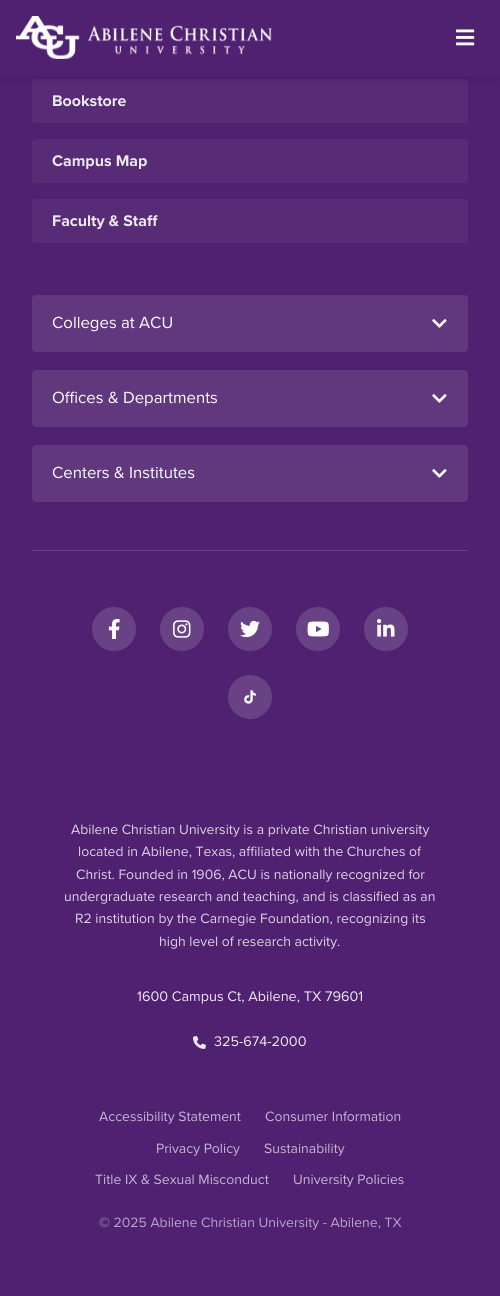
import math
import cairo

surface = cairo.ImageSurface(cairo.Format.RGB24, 500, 1296)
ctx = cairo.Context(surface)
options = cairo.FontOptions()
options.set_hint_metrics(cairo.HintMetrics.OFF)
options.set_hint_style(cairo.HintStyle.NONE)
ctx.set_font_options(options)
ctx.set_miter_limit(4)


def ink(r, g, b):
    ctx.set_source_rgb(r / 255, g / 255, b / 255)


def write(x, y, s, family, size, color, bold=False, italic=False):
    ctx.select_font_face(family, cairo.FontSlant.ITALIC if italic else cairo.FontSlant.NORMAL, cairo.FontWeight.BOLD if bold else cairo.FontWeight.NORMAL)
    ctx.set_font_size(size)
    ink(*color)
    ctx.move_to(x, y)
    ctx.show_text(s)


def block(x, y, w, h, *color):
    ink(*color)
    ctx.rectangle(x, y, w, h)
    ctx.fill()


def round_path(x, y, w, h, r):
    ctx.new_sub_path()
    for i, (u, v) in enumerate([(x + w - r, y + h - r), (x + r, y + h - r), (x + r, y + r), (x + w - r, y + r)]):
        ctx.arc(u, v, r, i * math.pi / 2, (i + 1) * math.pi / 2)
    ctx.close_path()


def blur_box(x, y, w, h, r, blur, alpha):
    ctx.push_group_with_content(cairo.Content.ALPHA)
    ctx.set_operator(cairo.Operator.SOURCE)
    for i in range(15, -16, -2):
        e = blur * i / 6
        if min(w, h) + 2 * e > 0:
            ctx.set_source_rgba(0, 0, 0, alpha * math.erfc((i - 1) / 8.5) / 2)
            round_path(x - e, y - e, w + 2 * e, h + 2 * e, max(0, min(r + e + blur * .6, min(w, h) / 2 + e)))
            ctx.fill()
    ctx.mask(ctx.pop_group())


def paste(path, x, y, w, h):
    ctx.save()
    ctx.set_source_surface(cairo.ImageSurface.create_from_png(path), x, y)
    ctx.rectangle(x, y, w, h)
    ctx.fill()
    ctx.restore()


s1 = dict(family="Proxima Nova", size=16, color=(237, 233, 241), bold=True)
s2 = dict(family="Proxima Nova", size=16.75, color=(255, 255, 255))
s3 = dict(family="Proxima Nova", size=14, color=(220, 211, 226))
s4 = dict(family="Proxima Nova", size=14.4, color=(237, 233, 241))
s5 = dict(family="Proxima Nova", size=14, color=(198, 183, 209))
s6 = dict(family="Proxima Nova", size=14, color=(185, 166, 198))

ink(79, 33, 112)
ctx.paint()
ink(87, 43, 118)
round_path(32, 79, 436, 44, 4)
ctx.fill()
ink(0, 0, 0)
blur_box(0, -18, 500, 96, 0, 6, 0.15)
block(0, 0, 500, 76, 79, 33, 112)
paste("pic1.png", 16, 16, 256, 43)
paste("pic2.png", 456, 29, 19, 17)
write(52, 106, "Bookstore", **s1)
ink(87, 43, 118)
round_path(32, 139, 436, 44, 4)
ctx.fill()
write(52, 166, "Campus Map", **s1)
ink(87, 43, 118)
round_path(32, 199, 436, 44, 4)
ctx.fill()
write(52, 226, "Faculty & Staff", **s1)
ink(97, 55, 126)
round_path(32, 295, 436, 57, 4)
ctx.fill()
write(52, 328, "Colleges at ACU", **s2)
paste("pic3.png", 432, 319, 15, 9)
ink(97, 55, 126)
round_path(32, 370, 436, 57, 4)
ctx.fill()
write(52, 403, "Offices & Departments", **s2)
paste("pic3.png", 432, 394, 15, 9)
ink(97, 55, 126)
round_path(32, 445, 436, 57, 4)
ctx.fill()
write(52, 478, "Centers & Institutes", **s2)
paste("pic3.png", 432, 469, 15, 9)
block(32, 550, 436, 1, 105, 66, 133)
ctx.arc(114, 629, 22, 0, 2 * math.pi)
ctx.fill()
paste("pic4.png", 108, 619, 12, 20)
ctx.arc(182, 629, 22, 0, 2 * math.pi)
ctx.fill()
paste("pic5.png", 173, 620, 18, 18)
ctx.arc(250, 629, 22, 0, 2 * math.pi)
ctx.fill()
paste("pic6.png", 240, 620, 20, 18)
ctx.arc(318, 629, 22, 0, 2 * math.pi)
ctx.fill()
paste("pic7.png", 307, 621, 22, 16)
ctx.arc(386, 629, 22, 0, 2 * math.pi)
ctx.fill()
paste("pic8.png", 377, 619, 18, 18)
ctx.arc(250, 697, 22, 0, 2 * math.pi)
ctx.fill()
paste("pic9.png", 244, 690, 12, 14)
write(71, 834, "Abilene Christian University is a private Christian university", **s3)
write(78, 856, "located in Abilene, Texas, affiliated with the Churches of", **s3)
write(76, 879, "Christ. Founded in 1906, ACU is nationally recognized for", **s3)
write(64, 901, "undergraduate research and teaching, and is classified as an", **s3)
write(75, 923, "R2 institution by the Carnegie Foundation, recognizing its", **s3)
write(159, 946, "high level of research activity.", **s3)
write(137, 1001, "1600 Campus Ct, Abilene, TX 79601", **s4)
paste("pic10.png", 193, 1036, 13, 13)
write(214, 1046, "325-674-2000", **s4)
write(99, 1121, "Accessibility Statement", **s5)
write(265, 1121, "Consumer Information", **s5)
write(156, 1153, "Privacy Policy", **s5)
write(264, 1153, "Sustainability", **s5)
write(95, 1184, "Title IX & Sexual Misconduct", **s5)
write(293, 1184, "University Policies", **s5)
write(99, 1227, "© 2025 Abilene Christian University - Abilene, TX", **s6)
surface.write_to_png("screenshot.png")
